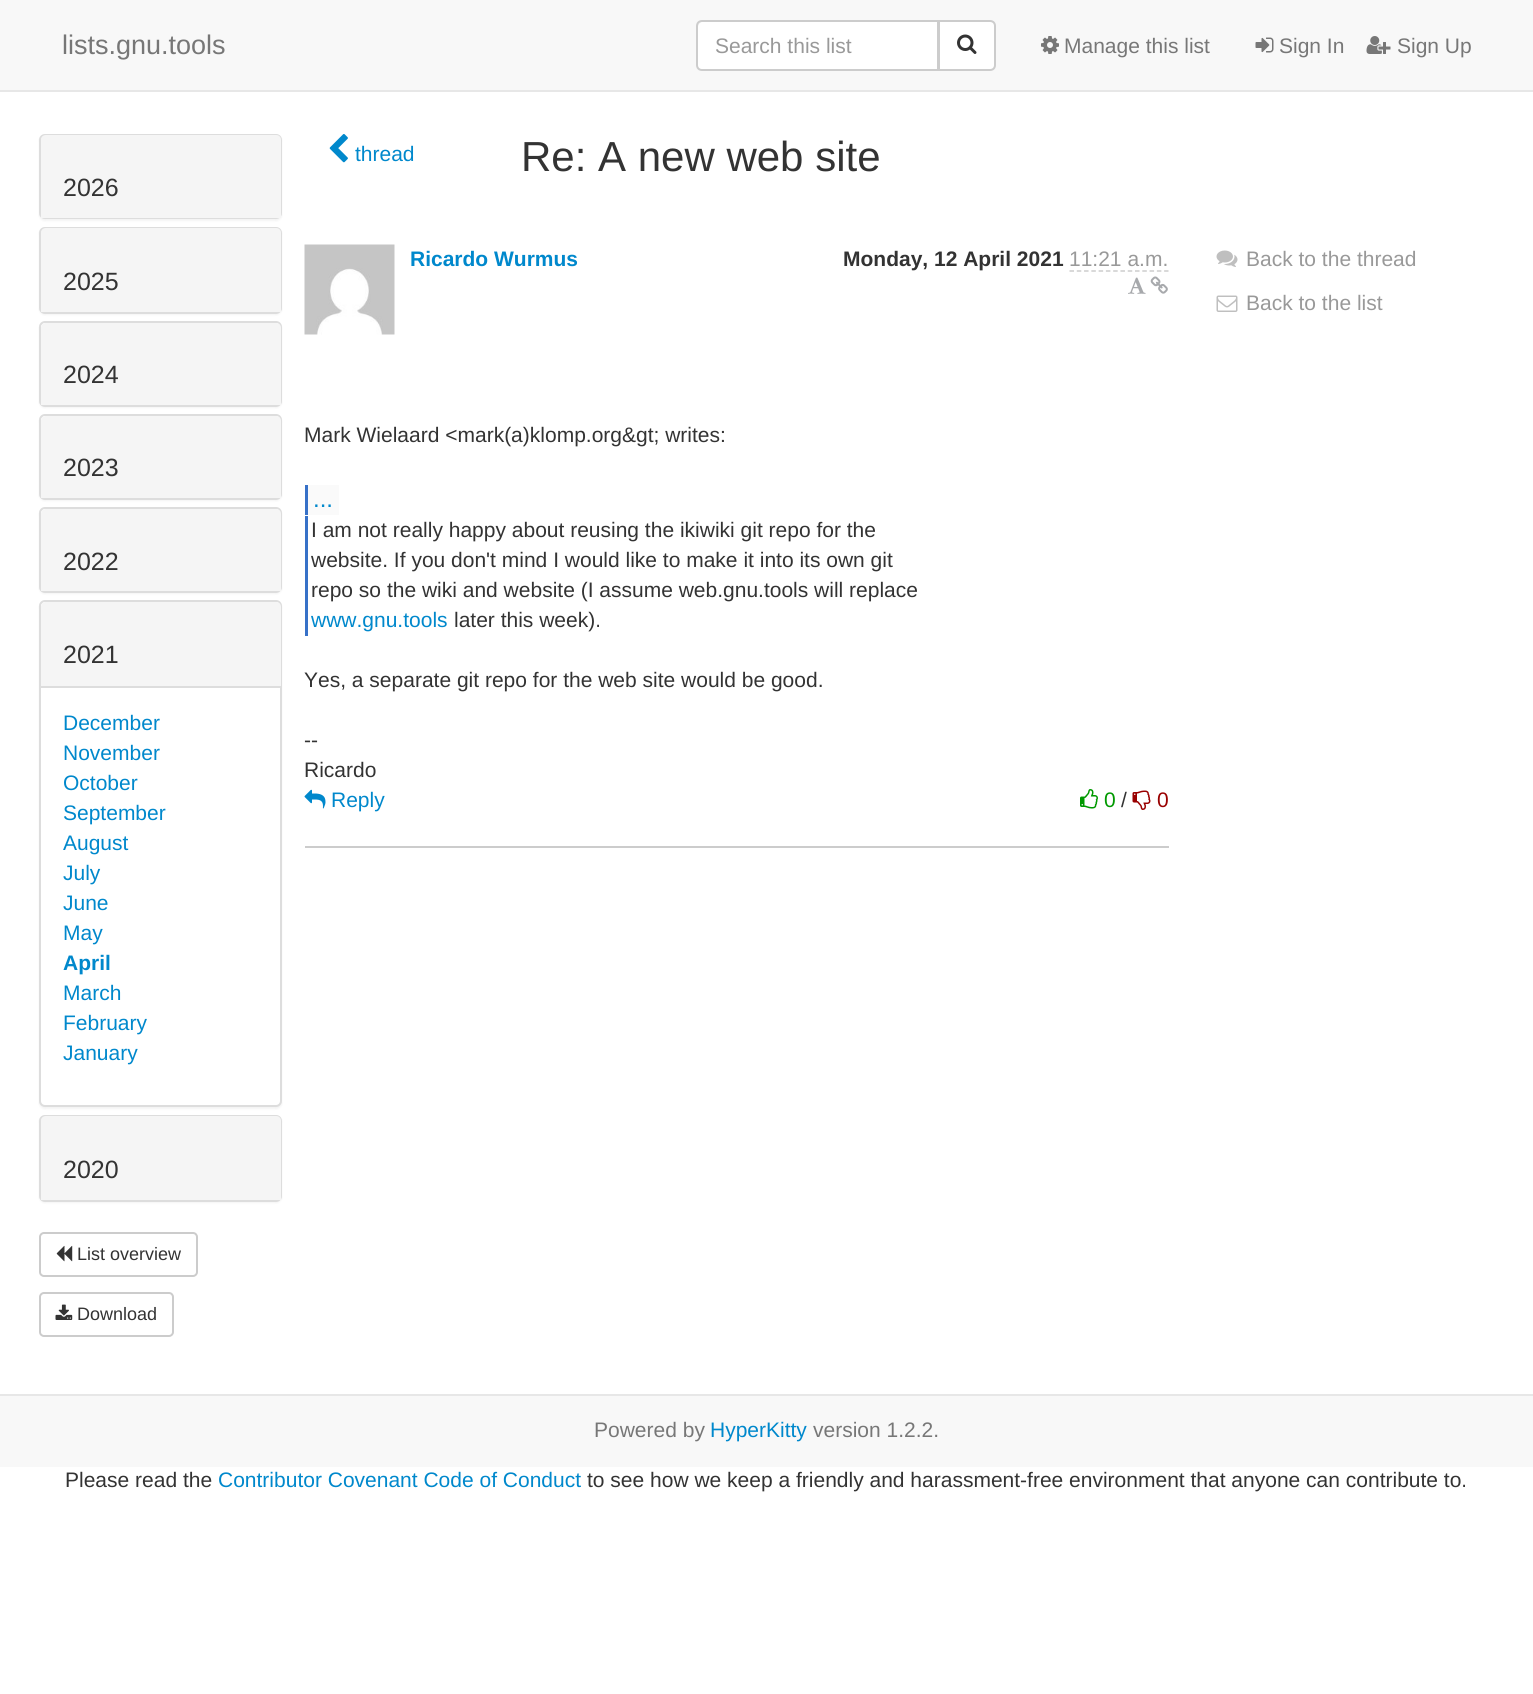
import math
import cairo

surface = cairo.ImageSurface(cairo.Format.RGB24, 1533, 1694)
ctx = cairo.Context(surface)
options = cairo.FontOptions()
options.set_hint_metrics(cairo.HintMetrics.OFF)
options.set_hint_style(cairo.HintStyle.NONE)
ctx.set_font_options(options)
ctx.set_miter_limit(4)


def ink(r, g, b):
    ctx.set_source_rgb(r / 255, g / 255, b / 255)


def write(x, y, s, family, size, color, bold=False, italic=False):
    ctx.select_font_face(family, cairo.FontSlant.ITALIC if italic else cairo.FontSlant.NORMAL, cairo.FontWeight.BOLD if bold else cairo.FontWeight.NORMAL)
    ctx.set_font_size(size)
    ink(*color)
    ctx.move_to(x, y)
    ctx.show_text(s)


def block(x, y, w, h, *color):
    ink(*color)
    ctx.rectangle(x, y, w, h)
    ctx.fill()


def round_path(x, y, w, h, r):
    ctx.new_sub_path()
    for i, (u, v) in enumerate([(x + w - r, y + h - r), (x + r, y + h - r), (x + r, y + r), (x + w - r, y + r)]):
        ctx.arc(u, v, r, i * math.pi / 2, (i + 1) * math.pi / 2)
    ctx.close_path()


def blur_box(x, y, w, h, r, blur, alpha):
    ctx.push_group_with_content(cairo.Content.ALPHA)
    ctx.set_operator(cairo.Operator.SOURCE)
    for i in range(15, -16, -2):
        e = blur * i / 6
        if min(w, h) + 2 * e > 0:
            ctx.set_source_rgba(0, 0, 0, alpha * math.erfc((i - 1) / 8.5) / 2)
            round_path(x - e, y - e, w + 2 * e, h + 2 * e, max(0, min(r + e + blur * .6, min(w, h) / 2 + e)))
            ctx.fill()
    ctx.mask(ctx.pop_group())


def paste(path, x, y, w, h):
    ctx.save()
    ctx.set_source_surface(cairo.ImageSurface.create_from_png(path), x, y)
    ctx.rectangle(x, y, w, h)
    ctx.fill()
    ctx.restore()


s1 = dict(family="Liberation Sans", size=27, color=(119, 119, 119))
s2 = dict(family="Liberation Sans", size=21, color=(153, 153, 153))
s3 = dict(family="Liberation Sans", size=21, color=(119, 119, 119))
s4 = dict(family="Liberation Sans", size=25, color=(51, 51, 51))
s5 = dict(family="Liberation Sans", size=21, color=(0, 136, 204))
s6 = dict(family="Liberation Sans", size=21, color=(0, 136, 204), bold=True)
s7 = dict(family="Liberation Sans", size=18, color=(51, 51, 51))
s8 = dict(family="Liberation Sans", size=42, color=(51, 51, 51))
s9 = dict(family="Liberation Sans", size=21, color=(51, 51, 51), bold=True)
s10 = dict(family="Liberation Sans", size=21, color=(51, 51, 51))
s11 = dict(family="Liberation Sans", size=24, color=(0, 136, 204))
s12 = dict(family="Liberation Sans", size=21, color=(0, 153, 0))
s13 = dict(family="Liberation Sans", size=21, color=(153, 0, 0))

ink(255, 255, 255)
ctx.paint()
block(0, 0, 1533, 90, 248, 248, 248)
block(0, 90, 1533, 2, 231, 231, 231)
write(62, 54, "lists.gnu.tools", **s1)
ink(255, 255, 255)
ctx.new_path()
ctx.move_to(702, 20)
ctx.line_to(939, 20)
ctx.line_to(939, 71)
ctx.line_to(702, 71)
ctx.curve_to(698.5, 71, 696, 68.5, 696, 65)
ctx.line_to(696, 26)
ctx.curve_to(696, 22.5, 698.5, 20, 702, 20)
ctx.close_path()
ctx.fill()
ink(236, 236, 236)
ctx.new_path()
ctx.move_to(702, 22)
ctx.line_to(938, 22)
ctx.line_to(938, 21)
ctx.line_to(703, 21)
ctx.curve_to(700, 21, 698, 23, 698, 26)
ctx.line_to(698, 27)
ctx.curve_to(698, 25, 700, 22, 702, 22)
ctx.close_path()
ctx.fill()
ctx.new_path()
ctx.move_to(702, 21)
ctx.line_to(938, 21)
ctx.line_to(938, 70)
ctx.line_to(702, 70)
ctx.curve_to(699, 70, 697, 68, 697, 65)
ctx.line_to(697, 26)
ctx.curve_to(697, 23, 699, 21, 702, 21)
ctx.close_path()
ink(204, 204, 204)
ctx.stroke()
write(715, 53, "Search this list", **s2)
ink(255, 255, 255)
ctx.new_path()
ctx.move_to(939, 21)
ctx.line_to(990, 21)
ctx.curve_to(993, 21, 995, 23, 995, 26)
ctx.line_to(995, 65)
ctx.curve_to(995, 68, 993, 70, 990, 70)
ctx.line_to(939, 70)
ctx.close_path()
ctx.fill_preserve()
ink(204, 204, 204)
ctx.stroke()
paste("pic1.png", 957, 34, 20, 20)
paste("pic2.png", 1041, 36, 18, 18)
write(1064, 53, "Manage this list", **s3)
paste("pic3.png", 1255, 37, 19, 16)
write(1279, 53, "Sign In", **s3)
paste("pic4.png", 1366, 36, 25, 18)
write(1397, 53, "Sign Up", **s3)
ink(0, 0, 0)
blur_box(39, 135, 243, 86, 6, 1, 0.05)
round_path(40, 135, 241, 83, 5)
ink(221, 221, 221)
ctx.stroke()
ink(245, 245, 245)
ctx.new_path()
ctx.move_to(46, 135)
ctx.line_to(276, 135)
ctx.curve_to(279, 135, 281, 137, 281, 140)
ctx.line_to(281, 218)
ctx.line_to(41, 218)
ctx.line_to(41, 140)
ctx.curve_to(41, 137, 43, 135, 46, 135)
ctx.close_path()
ctx.fill()
write(63, 196, "2026", **s4)
ink(0, 0, 0)
blur_box(39, 228, 243, 87, 6, 1, 0.05)
round_path(40, 228, 241, 85, 5)
ink(221, 221, 221)
ctx.stroke()
ink(245, 245, 245)
ctx.new_path()
ctx.move_to(46, 228)
ctx.line_to(276, 228)
ctx.curve_to(279, 228, 281, 230, 281, 233)
ctx.line_to(281, 312)
ctx.line_to(41, 312)
ctx.line_to(41, 233)
ctx.curve_to(41, 230, 43, 228, 46, 228)
ctx.close_path()
ctx.fill()
write(63, 290, "2025", **s4)
ink(0, 0, 0)
blur_box(39, 323, 243, 85, 6, 1, 0.05)
ink(255, 255, 255)
round_path(40, 322, 241, 84, 5)
ctx.fill_preserve()
ink(221, 221, 221)
ctx.stroke()
ink(245, 245, 245)
ctx.new_path()
ctx.move_to(46, 323)
ctx.line_to(276, 323)
ctx.curve_to(279, 323, 281, 325, 281, 328)
ctx.line_to(281, 405)
ctx.line_to(41, 405)
ctx.line_to(41, 328)
ctx.curve_to(41, 325, 43, 323, 46, 323)
ctx.close_path()
ctx.fill()
write(63, 383, "2024", **s4)
ink(0, 0, 0)
blur_box(39, 416, 243, 85, 6, 1, 0.05)
ink(255, 255, 255)
round_path(40, 415, 241, 84, 5)
ctx.fill_preserve()
ink(221, 221, 221)
ctx.stroke()
ink(245, 245, 245)
ctx.new_path()
ctx.move_to(46, 416)
ctx.line_to(276, 416)
ctx.curve_to(279, 416, 281, 418, 281, 421)
ctx.line_to(281, 498)
ctx.line_to(41, 498)
ctx.line_to(41, 421)
ctx.curve_to(41, 418, 43, 416, 46, 416)
ctx.close_path()
ctx.fill()
write(63, 476, "2023", **s4)
ink(0, 0, 0)
blur_box(39, 509, 243, 85, 6, 1, 0.05)
ink(255, 255, 255)
round_path(40, 508, 241, 84, 5)
ctx.fill_preserve()
ink(221, 221, 221)
ctx.stroke()
ink(245, 245, 245)
ctx.new_path()
ctx.move_to(46, 509)
ctx.line_to(276, 509)
ctx.curve_to(279, 509, 281, 511, 281, 514)
ctx.line_to(281, 591)
ctx.line_to(41, 591)
ctx.line_to(41, 514)
ctx.curve_to(41, 511, 43, 509, 46, 509)
ctx.close_path()
ctx.fill()
write(63, 570, "2022", **s4)
ink(0, 0, 0)
blur_box(39, 602, 243, 507, 6, 1, 0.05)
ink(255, 255, 255)
round_path(40, 601, 241, 505, 5)
ctx.fill_preserve()
ink(221, 221, 221)
ctx.stroke()
ink(245, 245, 245)
ctx.new_path()
ctx.move_to(46, 602)
ctx.line_to(276, 602)
ctx.curve_to(279, 602, 281, 604, 281, 607)
ctx.line_to(281, 686)
ctx.line_to(41, 686)
ctx.line_to(41, 607)
ctx.curve_to(41, 604, 43, 602, 46, 602)
ctx.close_path()
ctx.fill()
write(63, 663, "2021", **s4)
block(41, 686, 240, 2, 221, 221, 221)
write(63, 730, "December", **s5)
write(63, 760, "November", **s5)
write(63, 790, "October", **s5)
write(63, 820, "September", **s5)
write(63, 850, "August", **s5)
write(63, 880, "July", **s5)
write(63, 910, "June", **s5)
write(63, 940, "May", **s5)
write(63, 970, "April", **s6)
write(63, 1000, "March", **s5)
write(63, 1030, "February", **s5)
write(63, 1060, "January", **s5)
ink(0, 0, 0)
blur_box(39, 1116, 243, 87, 6, 1, 0.05)
round_path(40, 1116, 241, 85, 5)
ink(221, 221, 221)
ctx.stroke()
ink(245, 245, 245)
ctx.new_path()
ctx.move_to(46, 1116)
ctx.line_to(276, 1116)
ctx.curve_to(279, 1116, 281, 1118, 281, 1121)
ctx.line_to(281, 1200)
ctx.line_to(41, 1200)
ctx.line_to(41, 1121)
ctx.curve_to(41, 1118, 43, 1116, 46, 1116)
ctx.close_path()
ctx.fill()
write(63, 1178, "2020", **s4)
round_path(40, 1233, 157, 43, 4)
ink(204, 204, 204)
ctx.stroke()
paste("pic5.png", 56, 1245, 17, 17)
write(77, 1260, "List overview", **s7)
round_path(40, 1293, 133, 43, 4)
ink(204, 204, 204)
ctx.stroke()
paste("pic6.png", 55, 1304, 18, 16)
write(77, 1320, "Download", **s7)
paste("pic7.png", 329, 134, 19, 29)
write(355, 161, "thread", **s5)
write(521, 171, "Re: A new web site", **s8)
paste("pic8.png", 304, 244, 91, 91)
write(410, 266, "Ricardo Wurmus", **s6)
write(843, 266, "Monday, 12 April 2021", **s9)
write(1069, 266, "11:21 a.m.", **s2)
ctx.new_path()
ctx.move_to(1069.5, 271)
ctx.line_to(1168.5, 271)
ink(204, 204, 204)
ctx.set_line_width(1.5)
ctx.set_dash([4.5, 2.78])
ctx.stroke()
paste("pic9.png", 1128, 277, 18, 17)
paste("pic10.png", 1150, 276, 18, 18)
write(304, 442, "Mark Wielaard <mark(a)klomp.org&gt; writes:", **s10)
block(308, 485, 31, 30, 250, 250, 250)
write(313, 507, "...", **s11)
block(305, 485, 3, 30, 55, 113, 200)
block(305, 516, 3, 120, 55, 113, 200)
write(311, 537, "I am not really happy about reusing the ikiwiki git repo for the", **s10)
write(311, 567, "website. If you don't mind I would like to make it into its own git", **s10)
write(311, 597, "repo so the wiki and website (I assume web.gnu.tools will replace", **s10)
write(311, 627, "www.gnu.tools", **s5)
write(454, 627, "later this week).", **s10)
write(304, 687, "Yes, a separate git repo for the web site would be good.", **s10)
write(304, 747, "--", **s10)
write(304, 777, "Ricardo", **s10)
block(305, 846, 864, 2, 204, 204, 204)
paste("pic11.png", 304, 789, 22, 20)
write(331, 807, "Reply", **s5)
paste("pic12.png", 1080, 789, 18, 20)
write(1104, 807, "0", **s12)
write(1121, 807, "/", **s10)
paste("pic13.png", 1132, 790, 19, 20)
write(1157, 807, "0", **s13)
paste("pic14.png", 1216, 250, 22, 17)
write(1246, 266, "Back to the thread", **s2)
paste("pic15.png", 1216, 295, 22, 17)
write(1246, 310, "Back to the list", **s2)
block(0, 1396, 1533, 71, 248, 248, 248)
block(0, 1394, 1533, 2, 231, 231, 231)
write(594, 1437, "Powered by", **s3)
write(710, 1437, "HyperKitty", **s5)
write(813, 1437, "version 1.2.2.", **s3)
write(65, 1487, "Please read the", **s10)
write(218, 1487, "Contributor Covenant Code of Conduct", **s5)
write(587, 1487, "to see how we keep a friendly and harassment-free environment that anyone can contribute to.", **s10)
surface.write_to_png("screenshot.png")
